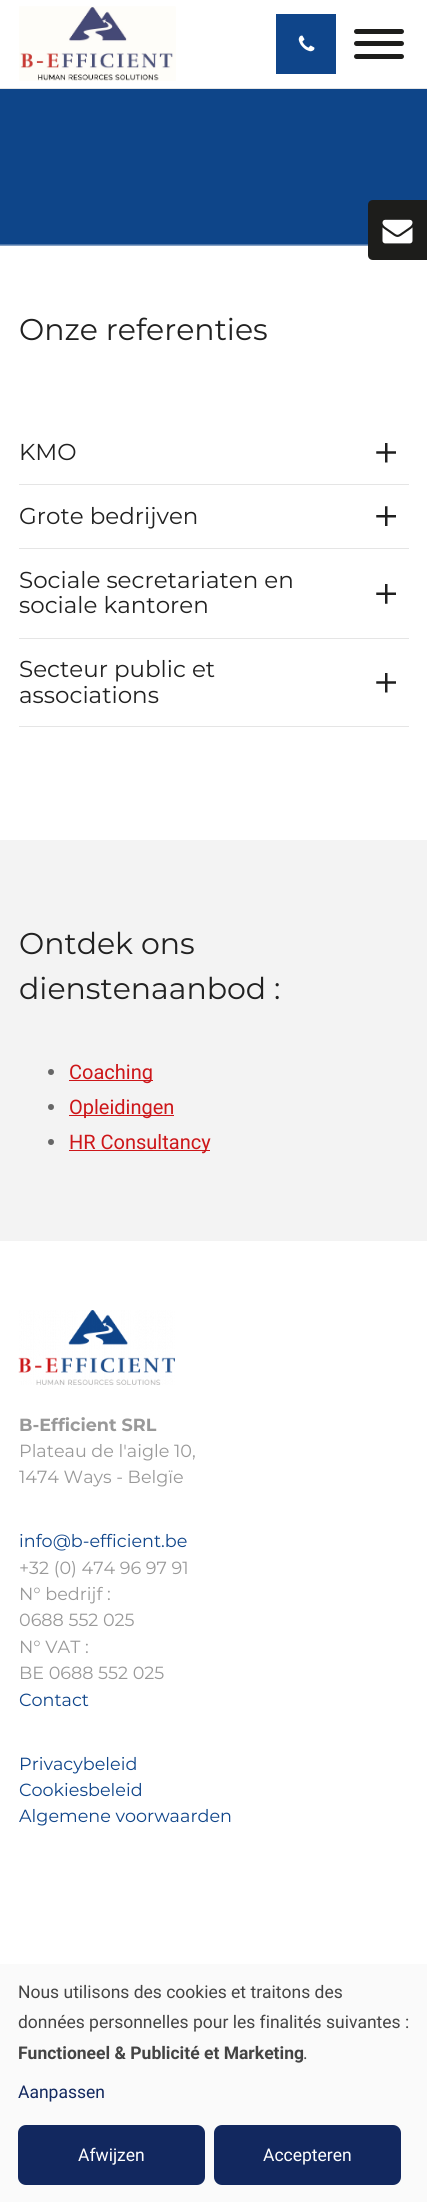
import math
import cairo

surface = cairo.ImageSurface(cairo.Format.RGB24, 427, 2202)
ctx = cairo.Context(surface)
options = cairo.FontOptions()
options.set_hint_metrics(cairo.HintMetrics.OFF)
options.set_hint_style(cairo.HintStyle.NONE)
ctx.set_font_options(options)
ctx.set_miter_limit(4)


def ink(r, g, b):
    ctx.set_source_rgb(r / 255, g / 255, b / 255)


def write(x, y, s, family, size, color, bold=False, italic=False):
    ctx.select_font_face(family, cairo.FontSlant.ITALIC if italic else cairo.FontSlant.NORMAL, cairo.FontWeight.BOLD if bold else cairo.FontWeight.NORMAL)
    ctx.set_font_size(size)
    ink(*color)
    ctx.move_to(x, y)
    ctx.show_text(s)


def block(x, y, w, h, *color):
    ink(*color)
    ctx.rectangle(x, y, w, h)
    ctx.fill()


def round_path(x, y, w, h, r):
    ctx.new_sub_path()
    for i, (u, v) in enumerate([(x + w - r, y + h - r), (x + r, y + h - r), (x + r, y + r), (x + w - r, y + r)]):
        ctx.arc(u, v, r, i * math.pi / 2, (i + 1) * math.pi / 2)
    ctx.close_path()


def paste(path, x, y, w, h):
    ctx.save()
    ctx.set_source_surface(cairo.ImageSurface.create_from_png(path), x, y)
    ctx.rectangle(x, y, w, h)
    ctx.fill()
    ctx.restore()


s1 = dict(family="Montserrat", size=30, color=(33, 33, 33))
s2 = dict(family="Montserrat", size=23, color=(33, 33, 33))
s3 = dict(family="Roboto", size=20, color=(205, 22, 25))
s4 = dict(family="Montserrat", size=17.6, color=(153, 153, 153), bold=True)
s5 = dict(family="Montserrat", size=17.6, color=(153, 153, 153))
s6 = dict(family="Montserrat", size=17.6, color=(15, 69, 138))
s7 = dict(family="Roboto", size=17.5, color=(68, 68, 68))
s8 = dict(family="Roboto", size=17.5, color=(68, 68, 68), bold=True)
s9 = dict(family="Roboto", size=17.5, color=(18, 40, 95))
s10 = dict(family="Roboto", size=17.5, color=(255, 255, 255))

ink(255, 255, 255)
ctx.paint()
block(0, 88, 427, 1, 229, 229, 229)
paste("pic1.png", 19, 6, 157, 75)
block(276, 14, 60, 60, 15, 69, 138)
paste("pic2.png", 298, 35, 17, 17)
ink(29, 29, 27)
round_path(354, 29, 50, 5, 2.5)
ctx.fill()
round_path(354, 41, 50, 5, 2.5)
ctx.fill()
round_path(354, 54, 50, 5, 2.5)
ctx.fill()
paste("pic4.png", 0, 89, 427, 157)
ctx.new_path()
ctx.move_to(373, 200)
ctx.line_to(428, 200)
ctx.line_to(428, 260)
ctx.line_to(373, 260)
ctx.curve_to(370, 260, 368, 258, 368, 255)
ctx.line_to(368, 205)
ctx.curve_to(368, 202, 370, 200, 373, 200)
ctx.close_path()
ctx.fill()
paste("pic3.png", 382, 219, 31, 25)
write(19, 340, "Onze referenties", **s1)
block(19, 484, 390, 1, 229, 229, 229)
paste("pic5.png", 376, 443, 20, 20)
write(19, 460, "KMO", **s2)
block(19, 548, 390, 1, 229, 229, 229)
paste("pic6.png", 376, 506, 20, 20)
write(19, 524, "Grote bedrijven", **s2)
block(19, 638, 390, 1, 229, 229, 229)
paste("pic7.png", 376, 584, 20, 20)
write(19, 588, "Sociale secretariaten en", **s2)
write(19, 613, "sociale kantoren", **s2)
block(19, 726, 390, 1, 229, 229, 229)
paste("pic5.png", 376, 673, 20, 20)
write(19, 677, "Secteur public et", **s2)
write(19, 703, "associations", **s2)
block(0, 840, 427, 401, 243, 243, 243)
write(19, 954, "Ontdek ons", **s1)
write(19, 999, "dienstenaanbod :", **s1)
ink(102, 102, 102)
ctx.new_path()
ctx.arc(51, 1072, 3, 0, 2 * math.pi)
ctx.fill()
block(69, 1080, 84, 1, 205, 22, 25)
write(69, 1079, "Coaching", **s3)
ink(102, 102, 102)
ctx.new_path()
ctx.arc(51, 1107, 3, 0, 2 * math.pi)
ctx.fill()
block(69, 1115, 105, 1, 205, 22, 25)
write(69, 1114, "Opleidingen", **s3)
ink(102, 102, 102)
ctx.new_path()
ctx.arc(51, 1142, 3, 0, 2 * math.pi)
ctx.fill()
block(69, 1150, 141, 1, 205, 22, 25)
write(69, 1149, "HR Consultancy", **s3)
paste("pic8.png", 18, 1310, 157, 75)
write(19, 1431, "B-Efficient SRL", **s4)
write(19, 1457, "Plateau de l'aigle 10,", **s5)
write(19, 1483, "1474 Ways - Belgïe", **s5)
write(19, 1547, "info@b-efficient.be", **s6)
write(19, 1574, "+32 (0) 474 96 97 91", **s5)
write(19, 1600, "N° bedrijf :", **s5)
write(19, 1626, "0688 552 025", **s5)
write(19, 1653, "N° VAT :", **s5)
write(19, 1679, "BE 0688 552 025", **s5)
write(19, 1706, "Contact", **s6)
write(19, 1770, "Privacybeleid", **s6)
write(19, 1796, "Cookiesbeleid", **s6)
write(19, 1822, "Algemene voorwaarden", **s6)
block(0, 1964, 427, 238, 250, 250, 250)
write(18, 1998, "Nous utilisons des cookies et traitons des", **s7)
write(18, 2028, "données personnelles pour les finalités suivantes :", **s7)
write(18, 2059, "Functioneel & Publicité et Marketing", **s8)
write(303, 2059, ".", **s7)
write(18, 2098, "Aanpassen", **s9)
round_path(20, 2127, 183, 56, 6)
ctx.fill_preserve()
ctx.set_line_width(4)
ctx.stroke()
write(78, 2161, "Afwijzen", **s10)
ink(18, 40, 95)
round_path(216, 2127, 183, 56, 6)
ctx.fill_preserve()
ctx.stroke()
write(263, 2161, "Accepteren", **s10)
surface.write_to_png("screenshot.png")
